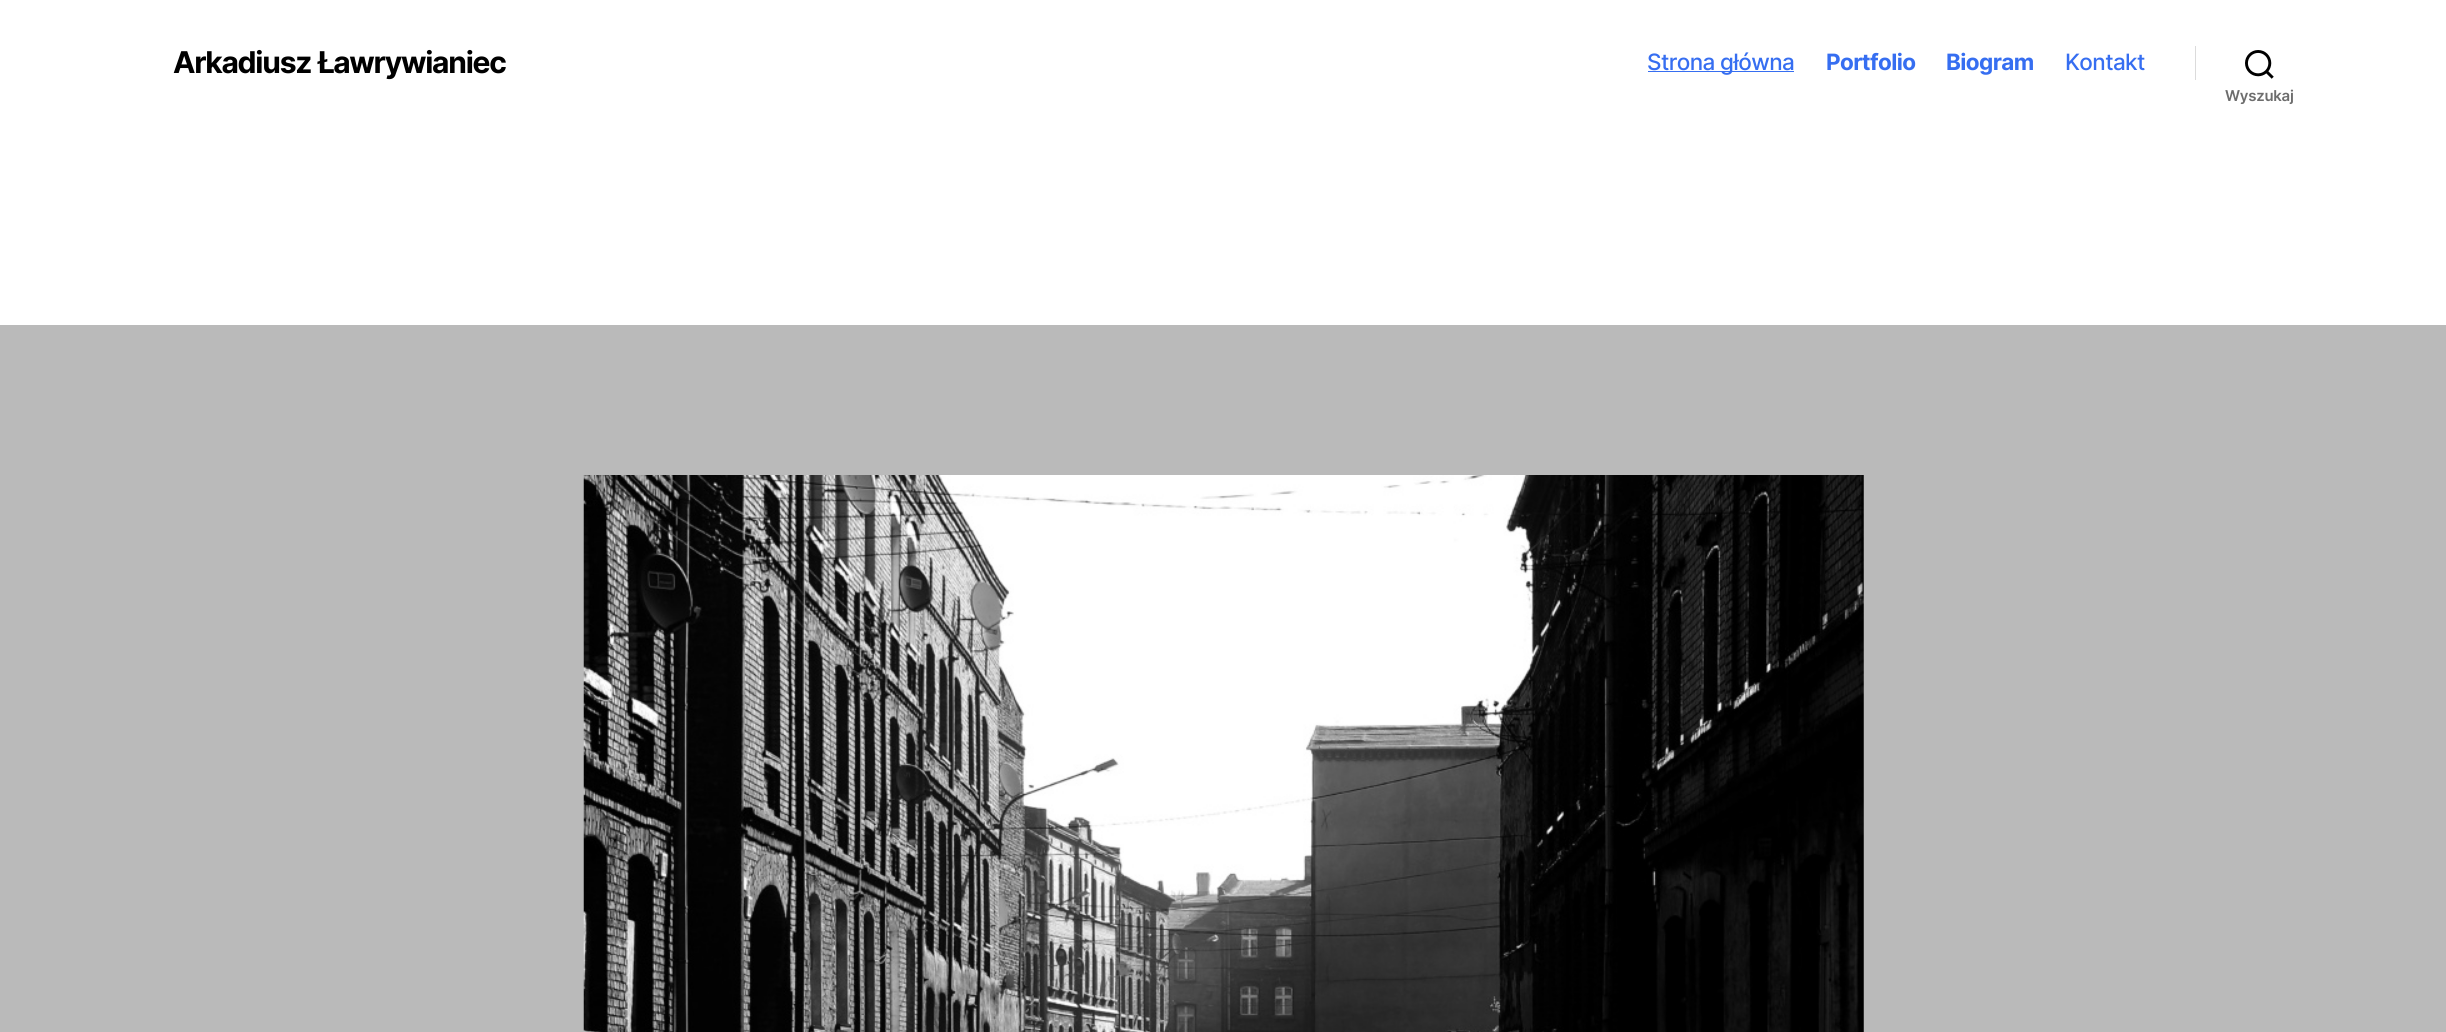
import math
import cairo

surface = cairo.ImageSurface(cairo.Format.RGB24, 2446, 1032)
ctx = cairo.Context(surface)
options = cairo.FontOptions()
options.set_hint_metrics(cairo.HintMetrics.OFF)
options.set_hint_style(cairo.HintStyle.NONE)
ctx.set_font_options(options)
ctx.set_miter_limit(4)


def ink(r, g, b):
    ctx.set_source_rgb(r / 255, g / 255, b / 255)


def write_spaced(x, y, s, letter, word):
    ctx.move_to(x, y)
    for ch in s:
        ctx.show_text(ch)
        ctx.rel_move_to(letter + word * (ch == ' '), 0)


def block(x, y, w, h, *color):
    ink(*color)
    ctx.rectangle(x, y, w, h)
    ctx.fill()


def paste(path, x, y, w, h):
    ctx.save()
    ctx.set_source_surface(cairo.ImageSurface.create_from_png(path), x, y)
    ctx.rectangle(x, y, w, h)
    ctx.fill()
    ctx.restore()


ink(186, 186, 186)
ctx.paint()
block(0, 0, 2446, 325, 255, 255, 255)
paste("pic1.png", 583, 475, 1281, 557)
ctx.select_font_face("Inter", cairo.FontSlant.NORMAL, cairo.FontWeight.BOLD)
ctx.set_font_size(30)
ink(0, 0, 0)
write_spaced(173, 73, "Arkadiusz Ławrywianiec", -1.25, 0)
block(1648, 71, 146, 1, 54, 110, 241)
ctx.select_font_face("Inter Medium")
ctx.set_font_size(22.5)
write_spaced(1647, 70, "Strona główna", -0.6, 0)
ctx.select_font_face("Inter", cairo.FontSlant.NORMAL, cairo.FontWeight.BOLD)
write_spaced(1826, 70, "Portfolio", -0.6, 0)
write_spaced(1946, 70, "Biogram", -0.6, 0)
ctx.select_font_face("Inter Medium")
write_spaced(2065, 70, "Kontakt", -0.6, 0)
block(2195, 46, 1, 34, 219, 219, 219)
paste("pic2.png", 2245, 50, 29, 29)
ctx.select_font_face("Inter SemiBold")
ctx.set_font_size(15)
ink(109, 109, 109)
write_spaced(2225, 101, "Wyszukaj", -0.25, 0)
surface.write_to_png("screenshot.png")
